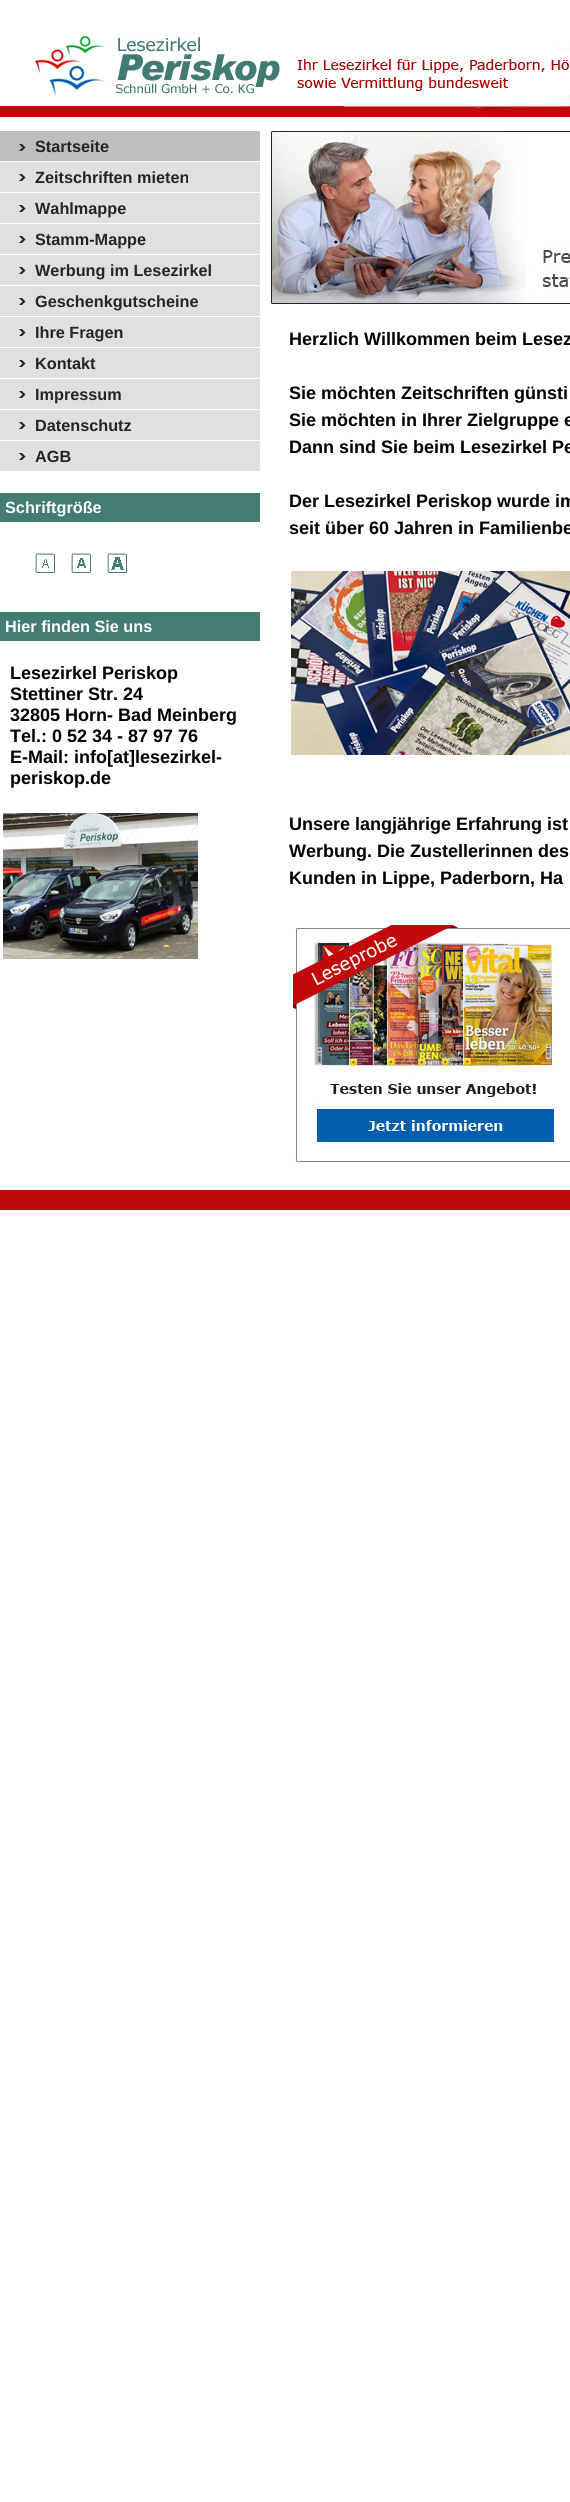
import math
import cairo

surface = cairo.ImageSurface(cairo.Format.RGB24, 570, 2502)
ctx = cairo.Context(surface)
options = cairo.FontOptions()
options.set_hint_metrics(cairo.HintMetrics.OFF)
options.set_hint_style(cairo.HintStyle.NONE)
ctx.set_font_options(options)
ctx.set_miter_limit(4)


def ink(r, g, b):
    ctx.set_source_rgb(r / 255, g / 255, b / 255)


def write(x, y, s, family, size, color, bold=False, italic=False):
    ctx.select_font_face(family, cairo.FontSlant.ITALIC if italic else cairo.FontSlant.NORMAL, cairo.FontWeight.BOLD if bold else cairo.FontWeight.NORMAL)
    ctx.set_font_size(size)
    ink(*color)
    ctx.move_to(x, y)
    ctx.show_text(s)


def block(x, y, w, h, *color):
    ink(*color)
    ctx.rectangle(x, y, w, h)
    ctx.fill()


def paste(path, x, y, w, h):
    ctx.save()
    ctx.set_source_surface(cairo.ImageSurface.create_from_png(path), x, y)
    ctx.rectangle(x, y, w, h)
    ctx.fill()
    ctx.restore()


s1 = dict(family="Liberation Sans", size=16.25, color=(37, 37, 37), bold=True)
s2 = dict(family="Liberation Sans", size=16.25, color=(255, 255, 255), bold=True)
s3 = dict(family="Liberation Sans", size=18, color=(0, 0, 0), bold=True)

ink(255, 255, 255)
ctx.paint()
paste("pic1.png", 0, 32, 570, 85)
paste("pic2.png", 0, 131, 260, 30)
write(35, 152, "Startseite", **s1)
paste("pic3.png", 0, 162, 260, 30)
write(35, 183, "Zeitschriften mieten", **s1)
paste("pic3.png", 0, 193, 260, 30)
write(35, 214, "Wahlmappe", **s1)
paste("pic3.png", 0, 224, 260, 30)
write(35, 245, "Stamm-Mappe", **s1)
paste("pic3.png", 0, 255, 260, 30)
write(35, 276, "Werbung im Lesezirkel", **s1)
paste("pic3.png", 0, 286, 260, 30)
write(35, 307, "Geschenkgutscheine", **s1)
paste("pic3.png", 0, 317, 260, 30)
write(35, 338, "Ihre Fragen", **s1)
paste("pic3.png", 0, 348, 260, 30)
write(35, 369, "Kontakt", **s1)
paste("pic3.png", 0, 379, 260, 30)
write(35, 400, "Impressum", **s1)
paste("pic3.png", 0, 410, 260, 30)
write(35, 431, "Datenschutz", **s1)
paste("pic3.png", 0, 441, 260, 30)
write(35, 462, "AGB", **s1)
block(0, 493, 260, 29, 66, 124, 115)
write(5, 513, "Schriftgröße", **s2)
paste("pic4.png", 35, 553, 20, 20)
paste("pic5.png", 71, 553, 20, 20)
paste("pic6.png", 107, 553, 20, 20)
block(0, 612, 260, 29, 66, 124, 115)
write(5, 632, "Hier finden Sie uns", **s2)
write(10, 679, "Lesezirkel Periskop", **s3)
write(10, 700, "Stettiner Str. 24", **s3)
write(10, 721, "32805 Horn- Bad Meinberg", **s3)
write(10, 742, "Tel.: 0 52 34 - 87 97 76", **s3)
write(10, 763, "E-Mail: info[at]lesezirkel-", **s3)
write(10, 784, "periskop.de", **s3)
paste("pic7.png", 3, 813, 195, 146)
paste("pic8.png", 269, 131, 301, 174)
write(289, 345, "Herzlich Willkommen beim Lesez", **s3)
write(289, 399, "Sie möchten Zeitschriften günsti", **s3)
write(289, 426, "Sie möchten in Ihrer Zielgruppe e", **s3)
write(289, 453, "Dann sind Sie beim Lesezirkel Pe", **s3)
write(289, 507, "Der Lesezirkel Periskop wurde im", **s3)
write(289, 534, "seit über 60 Jahren in Familienbe", **s3)
paste("pic9.png", 291, 571, 279, 184)
write(289, 830, "Unsere langjährige Erfahrung ist", **s3)
write(289, 857, "Werbung. Die Zustellerinnen des", **s3)
write(289, 884, "Kunden in Lippe, Paderborn, Ha", **s3)
paste("pic10.png", 289, 919, 281, 247)
block(0, 1190, 570, 20, 193, 10, 10)
surface.write_to_png("screenshot.png")
